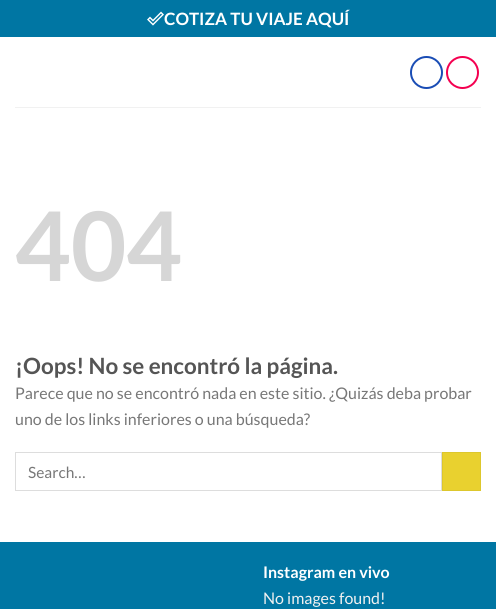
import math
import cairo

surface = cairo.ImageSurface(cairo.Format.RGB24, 496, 609)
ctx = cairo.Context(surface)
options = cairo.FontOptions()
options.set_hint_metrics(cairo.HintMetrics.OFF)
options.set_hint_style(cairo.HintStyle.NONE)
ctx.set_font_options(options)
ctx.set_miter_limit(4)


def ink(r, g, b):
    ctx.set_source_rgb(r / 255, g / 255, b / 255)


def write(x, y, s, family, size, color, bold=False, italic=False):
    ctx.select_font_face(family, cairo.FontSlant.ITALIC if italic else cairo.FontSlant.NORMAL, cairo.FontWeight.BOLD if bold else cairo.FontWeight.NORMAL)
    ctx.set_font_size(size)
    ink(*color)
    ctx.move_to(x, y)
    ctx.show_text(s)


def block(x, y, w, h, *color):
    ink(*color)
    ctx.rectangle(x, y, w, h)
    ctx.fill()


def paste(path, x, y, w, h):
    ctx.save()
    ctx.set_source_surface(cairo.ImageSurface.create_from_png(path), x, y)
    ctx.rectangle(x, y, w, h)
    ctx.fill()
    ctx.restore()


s1 = dict(family="Lato", size=17, color=(255, 255, 255), bold=True)
s2 = dict(family="Lato", size=96, color=(214, 214, 214), bold=True)
s3 = dict(family="Lato", size=22.4, color=(85, 85, 85), bold=True)
s4 = dict(family="Lato", size=16, color=(119, 119, 119))
s5 = dict(family="Lato", size=15.5, color=(119, 119, 119))
s6 = dict(family="Lato", size=16, color=(255, 255, 255), bold=True)
s7 = dict(family="Lato", size=16, color=(241, 241, 241))

ink(255, 255, 255)
ctx.paint()
block(0, 0, 496, 37, 0, 118, 163)
paste("pic1.png", 147, 11, 17, 15)
write(164, 25, "COTIZA TU VIAJE AQUÍ", **s1)
ctx.new_path()
ctx.arc(426.5, 72.5, 15.5, 0, 2 * math.pi)
ink(26, 77, 181)
ctx.stroke()
ctx.arc(462.5, 72.5, 15.5, 0, 2 * math.pi)
ink(244, 0, 80)
ctx.stroke()
block(15, 107, 466, 1, 241, 241, 241)
write(15, 281, "404", **s2)
write(15, 374, "¡Oops! No se encontró la página.", **s3)
write(15, 399, "Parece que no se encontró nada en este sitio. ¿Quizás deba probar", **s4)
write(15, 425, "uno de los links inferiores o una búsqueda?", **s4)
ctx.rectangle(15.5, 452.5, 426, 38)
ink(221, 221, 221)
ctx.set_line_width(1)
ctx.stroke()
write(28, 478, "Search…", **s5)
ink(233, 209, 47)
ctx.rectangle(442.5, 452.5, 38, 38)
ctx.fill_preserve()
ink(221, 199, 45)
ctx.stroke()
block(0, 542, 496, 67, 0, 118, 163)
write(263, 578, "Instagram en vivo", **s6)
write(263, 604, "No images found!", **s7)
surface.write_to_png("screenshot.png")
